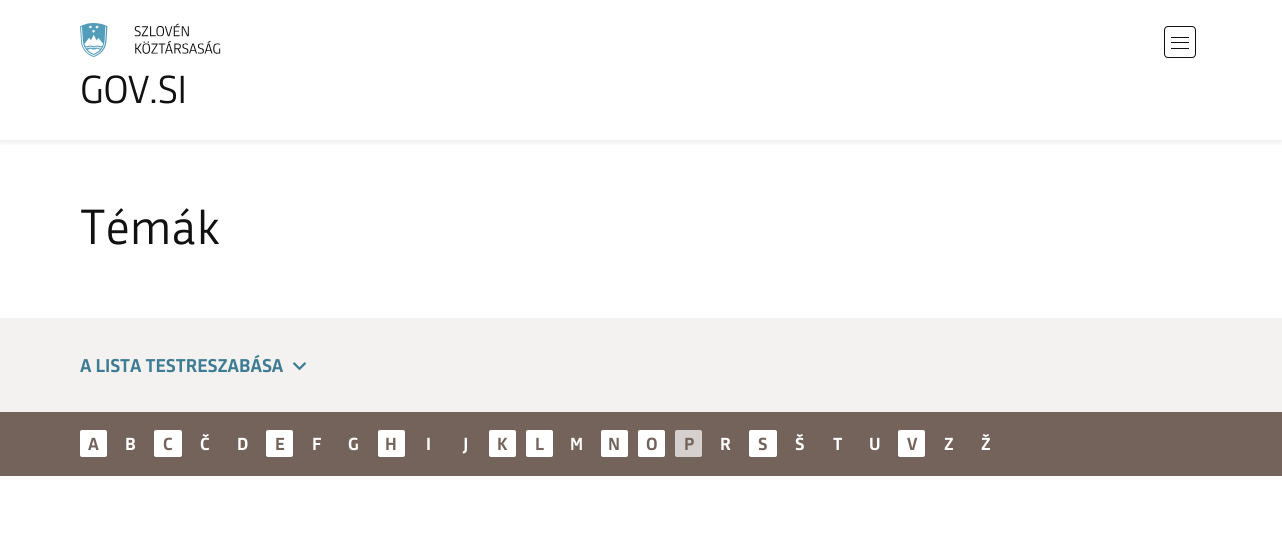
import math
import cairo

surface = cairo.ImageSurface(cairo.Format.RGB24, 1282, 542)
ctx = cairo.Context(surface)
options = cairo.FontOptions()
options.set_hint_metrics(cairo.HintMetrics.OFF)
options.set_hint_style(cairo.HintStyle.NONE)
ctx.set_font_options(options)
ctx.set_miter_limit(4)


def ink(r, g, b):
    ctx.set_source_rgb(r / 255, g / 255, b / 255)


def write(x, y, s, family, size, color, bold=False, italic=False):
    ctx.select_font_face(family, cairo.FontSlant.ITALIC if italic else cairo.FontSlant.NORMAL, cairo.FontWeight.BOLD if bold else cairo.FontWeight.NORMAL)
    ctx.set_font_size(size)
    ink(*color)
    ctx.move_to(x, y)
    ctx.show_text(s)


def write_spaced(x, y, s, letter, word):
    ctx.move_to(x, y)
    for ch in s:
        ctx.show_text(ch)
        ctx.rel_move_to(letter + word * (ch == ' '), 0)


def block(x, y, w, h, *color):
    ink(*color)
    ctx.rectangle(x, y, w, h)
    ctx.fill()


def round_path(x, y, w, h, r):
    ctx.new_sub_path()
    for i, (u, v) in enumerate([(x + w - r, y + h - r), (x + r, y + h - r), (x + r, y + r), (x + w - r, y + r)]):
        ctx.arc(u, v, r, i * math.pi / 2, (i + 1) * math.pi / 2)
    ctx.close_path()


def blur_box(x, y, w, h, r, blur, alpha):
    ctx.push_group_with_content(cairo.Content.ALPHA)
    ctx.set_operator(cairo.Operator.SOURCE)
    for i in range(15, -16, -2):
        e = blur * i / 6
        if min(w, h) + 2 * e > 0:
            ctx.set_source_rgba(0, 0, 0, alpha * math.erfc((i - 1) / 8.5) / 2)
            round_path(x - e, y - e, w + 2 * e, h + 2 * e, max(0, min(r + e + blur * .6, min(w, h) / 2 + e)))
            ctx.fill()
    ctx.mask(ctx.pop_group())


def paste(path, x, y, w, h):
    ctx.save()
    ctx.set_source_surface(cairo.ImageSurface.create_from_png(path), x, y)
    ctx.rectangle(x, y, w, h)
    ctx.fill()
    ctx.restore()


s1 = dict(family="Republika", size=48, color=(17, 17, 17))
s2 = dict(family="Republika", size=18, color=(62, 124, 148), bold=True)
s3 = dict(family="Republika", size=17, color=(115, 99, 91), bold=True)
s4 = dict(family="Republika", size=17, color=(255, 255, 255), bold=True)

ink(255, 255, 255)
ctx.paint()
ctx.save()
ctx.rectangle(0, 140, 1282, 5)
ctx.clip()
ink(0, 0, 0)
blur_box(0, 0, 1282, 140, 0, 5, 0.12)
ctx.restore()
round_path(1164.5, 26.5, 31, 31, 3.5)
ink(17, 17, 17)
ctx.set_line_width(1)
ctx.stroke()
block(1171, 48, 18, 1, 17, 17, 17)
block(1171, 37, 18, 1, 17, 17, 17)
block(1171, 42, 18, 1, 17, 17, 17)
paste("pic1.png", 80, 23, 141, 34)
ctx.select_font_face("Republika")
ctx.set_font_size(38)
write_spaced(80, 103, "GOV.SI", -0.75, 0)
write(80, 244, "Témák", **s1)
block(0, 318, 1282, 94, 243, 242, 240)
write(80, 372, "A LISTA TESTRESZABÁSA", **s2)
paste("pic2.png", 292, 362, 15, 9)
block(0, 412, 1282, 64, 115, 99, 91)
ink(255, 255, 255)
round_path(80, 430, 27, 27, 2)
ctx.fill()
write(88, 450, "A", **s3)
write(125, 450, "B", **s4)
round_path(154, 430, 28, 27, 2)
ctx.fill()
write(163, 450, "C", **s3)
write(200, 450, "Č", **s4)
write(237, 450, "D", **s4)
round_path(266, 430, 27, 27, 2)
ctx.fill()
write(275, 450, "E", **s3)
write(312, 450, "F", **s4)
write(348, 450, "G", **s4)
round_path(378, 430, 27, 27, 2)
ctx.fill()
write(385, 450, "H", **s3)
write(426, 450, "I", **s4)
write(463, 450, "J", **s4)
round_path(489, 430, 27, 27, 2)
ctx.fill()
write(497, 450, "K", **s3)
ink(255, 255, 255)
round_path(526, 430, 27, 27, 2)
ctx.fill()
write(535, 450, "L", **s3)
write(570, 450, "M", **s4)
round_path(601, 430, 27, 27, 2)
ctx.fill()
write(608, 450, "N", **s3)
ink(255, 255, 255)
round_path(638, 430, 27, 27, 2)
ctx.fill()
write(646, 450, "O", **s3)
ink(213, 208, 206)
round_path(675, 430, 27, 27, 2)
ctx.fill()
write(684, 450, "P", **s3)
write(720, 450, "R", **s4)
round_path(749, 430, 28, 27, 2)
ctx.fill()
write(758, 450, "S", **s3)
write(795, 450, "Š", **s4)
write(833, 450, "T", **s4)
write(869, 450, "U", **s4)
round_path(898, 430, 27, 27, 2)
ctx.fill()
write(907, 450, "V", **s3)
write(944, 450, "Z", **s4)
write(981, 450, "Ž", **s4)
surface.write_to_png("screenshot.png")
